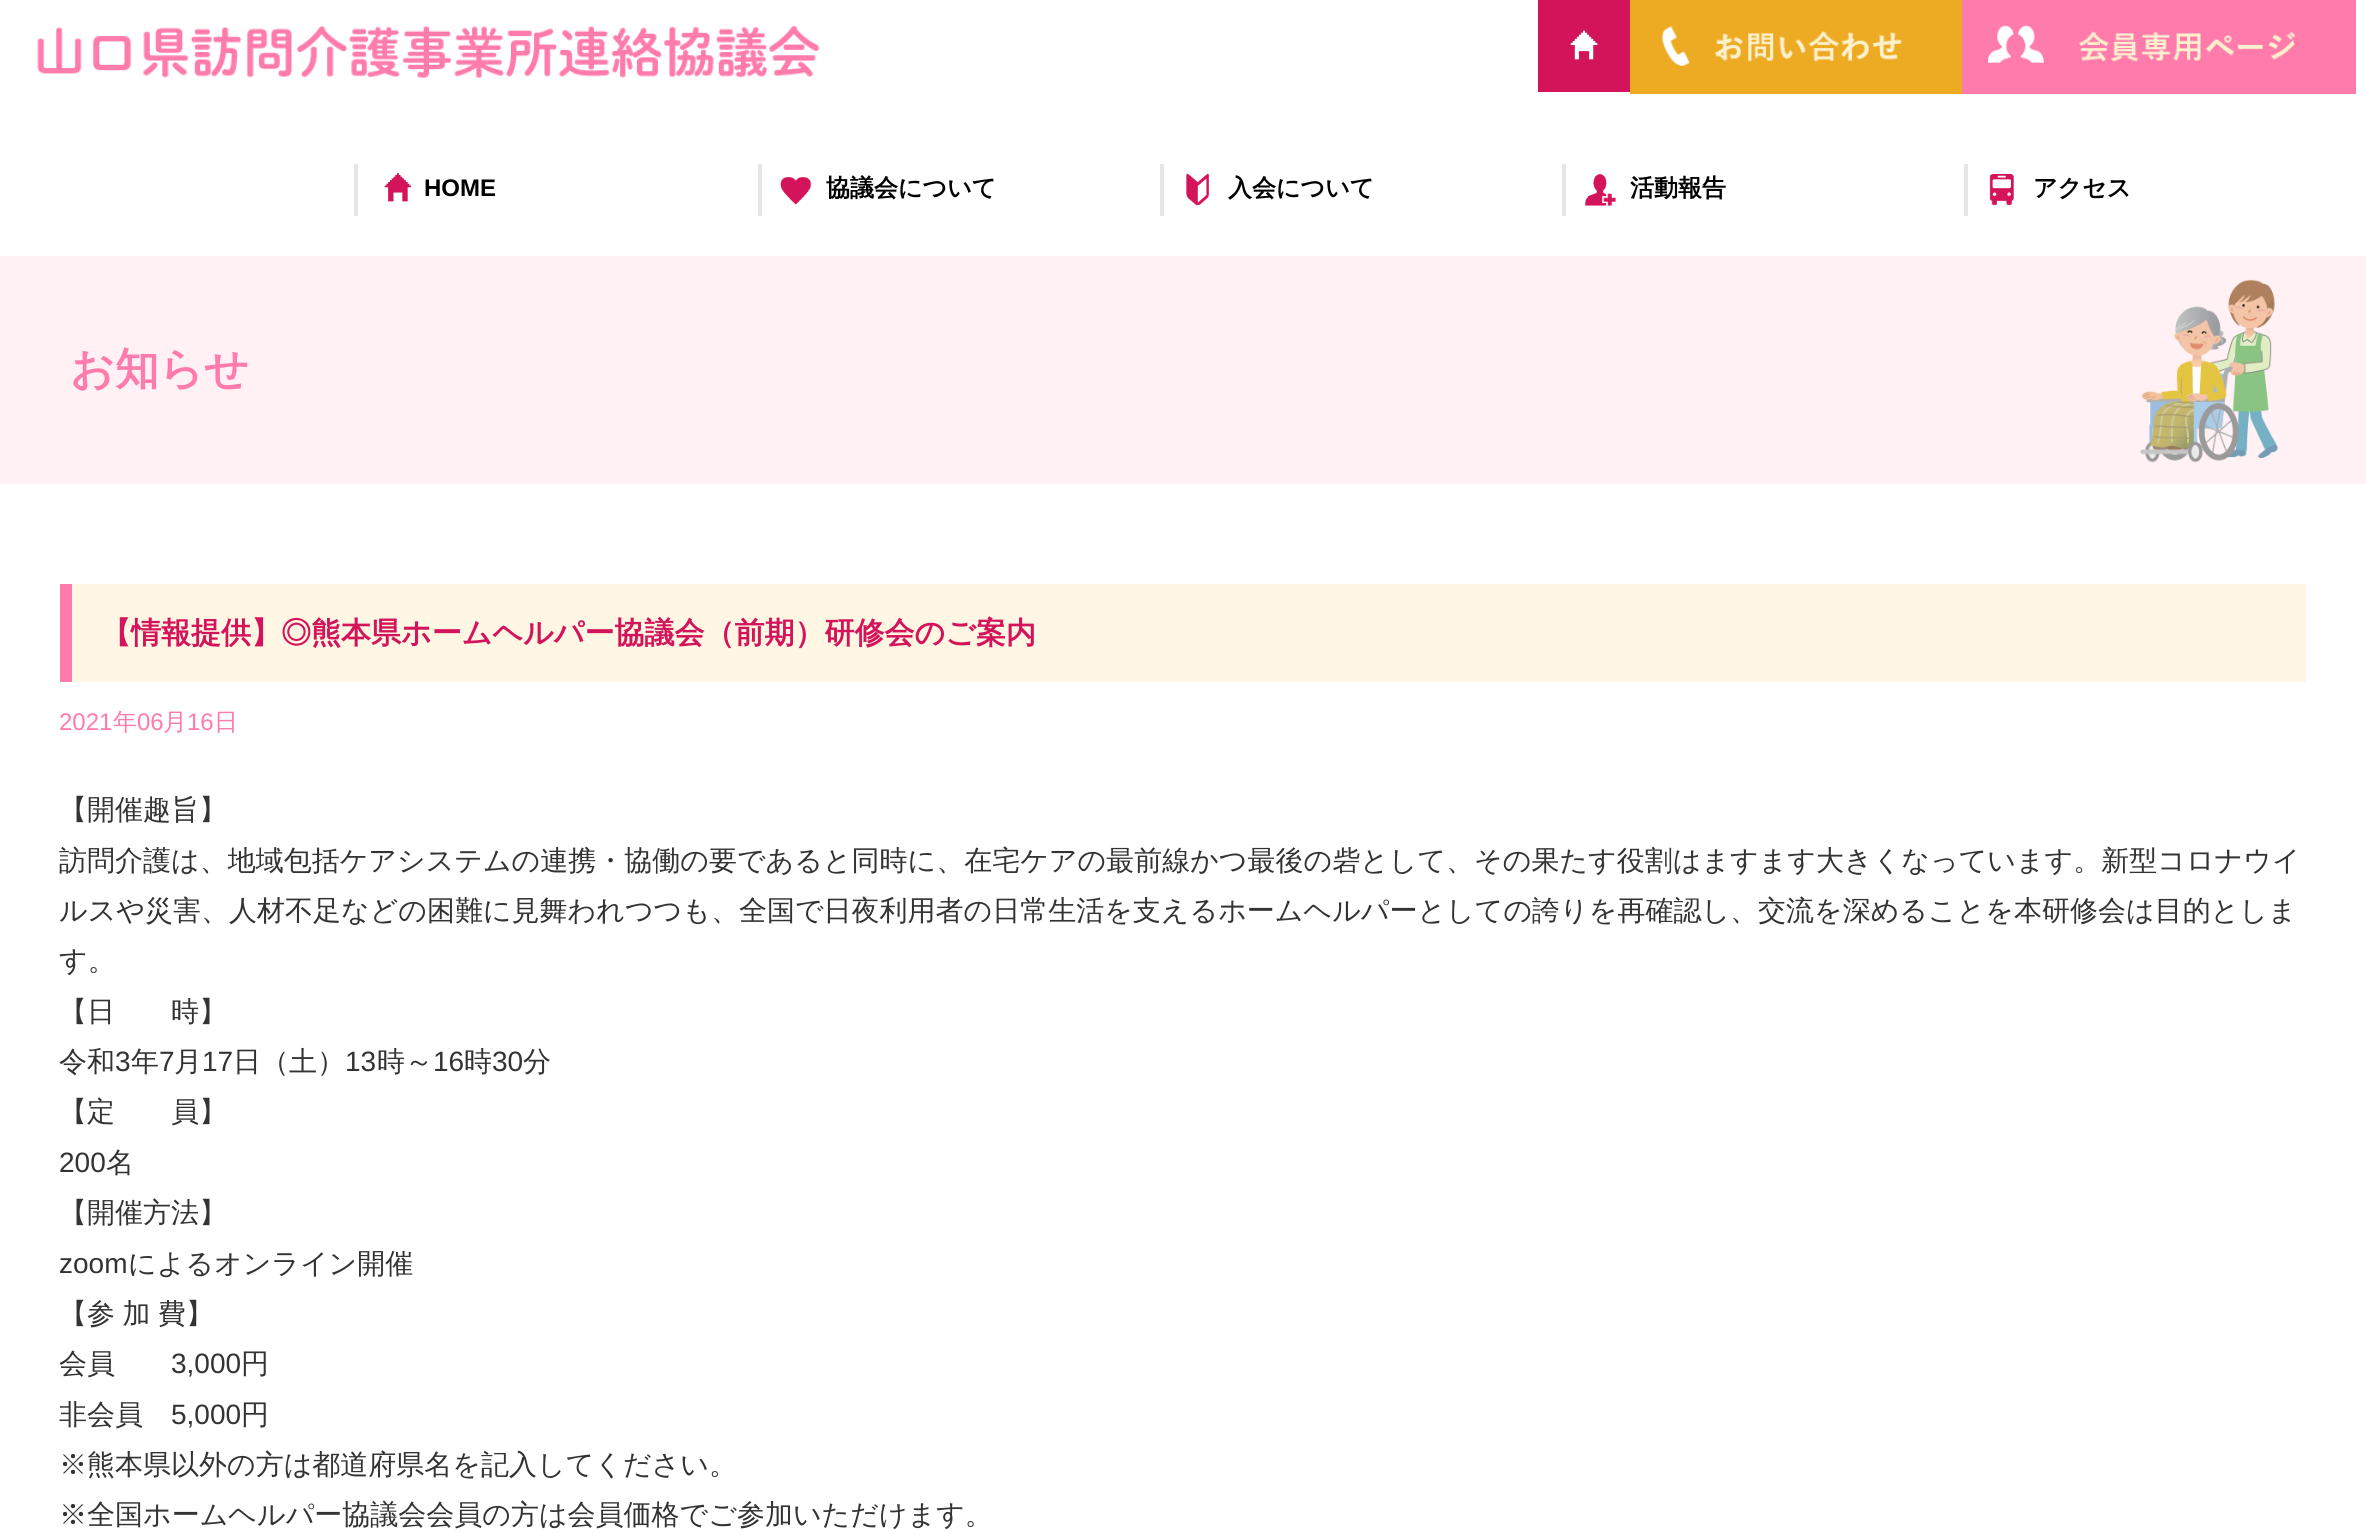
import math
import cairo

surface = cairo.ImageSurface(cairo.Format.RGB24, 2366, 1533)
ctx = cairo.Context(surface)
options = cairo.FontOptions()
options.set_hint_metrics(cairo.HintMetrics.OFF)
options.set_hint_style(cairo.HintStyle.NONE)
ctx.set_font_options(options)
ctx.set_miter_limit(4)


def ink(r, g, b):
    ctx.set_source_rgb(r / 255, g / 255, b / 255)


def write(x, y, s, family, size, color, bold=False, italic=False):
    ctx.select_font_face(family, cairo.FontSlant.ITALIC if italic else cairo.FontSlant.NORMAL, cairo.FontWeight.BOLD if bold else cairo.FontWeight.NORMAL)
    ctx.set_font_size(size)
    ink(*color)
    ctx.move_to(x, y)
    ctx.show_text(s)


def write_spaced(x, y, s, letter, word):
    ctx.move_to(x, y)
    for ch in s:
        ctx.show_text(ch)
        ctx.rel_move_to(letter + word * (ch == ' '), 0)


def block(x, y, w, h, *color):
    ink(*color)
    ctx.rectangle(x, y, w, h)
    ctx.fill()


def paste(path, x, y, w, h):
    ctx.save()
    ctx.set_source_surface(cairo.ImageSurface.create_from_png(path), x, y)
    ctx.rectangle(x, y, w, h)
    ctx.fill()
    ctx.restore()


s1 = dict(family="Liberation Sans", size=24, color=(0, 0, 0), bold=True)
s2 = dict(family="WenQuanYi Zen Hei", size=24, color=(0, 0, 0), bold=True)
s3 = dict(family="WenQuanYi Zen Hei", size=44, color=(255, 123, 172), bold=True)
s4 = dict(family="WenQuanYi Zen Hei", size=30, color=(212, 20, 90), bold=True)
s5 = dict(family="Liberation Sans", size=24, color=(255, 123, 172))
s6 = dict(family="WenQuanYi Zen Hei Medium", size=24, color=(255, 123, 172))
s7 = dict(family="WenQuanYi Zen Hei Medium", size=28, color=(51, 51, 51))
s8 = dict(family="Liberation Sans", size=28, color=(51, 51, 51))

ink(255, 255, 255)
ctx.paint()
paste("pic1.png", 37, 25, 783, 53)
paste("pic2.png", 1538, 0, 92, 92)
paste("pic3.png", 1630, 0, 332, 94)
paste("pic4.png", 1962, 0, 394, 94)
paste("pic5.png", 384, 173, 28, 29)
block(354, 164, 4, 52, 230, 230, 230)
write(424, 196, "HOME", **s1)
paste("pic6.png", 780, 177, 32, 28)
block(758, 164, 4, 52, 230, 230, 230)
write(826, 196, "協議会について", **s2)
paste("pic7.png", 1186, 173, 23, 33)
block(1160, 164, 4, 52, 230, 230, 230)
write(1228, 196, "入会について", **s2)
paste("pic8.png", 1584, 174, 32, 32)
block(1562, 164, 4, 52, 230, 230, 230)
write(1630, 196, "活動報告", **s2)
paste("pic9.png", 1989, 174, 25, 32)
block(1964, 164, 4, 52, 230, 230, 230)
write(2033, 196, "アクセス", **s2)
block(0, 256, 2366, 228, 255, 241, 244)
write(70, 384, "お知らせ", **s3)
paste("pic10.png", 2140, 279, 138, 184)
block(72, 584, 2234, 98, 255, 247, 227)
block(60, 584, 12, 98, 255, 123, 172)
write(101, 643, "【情報提供】◎熊本県ホームヘルパー協議会（前期）研修会のご案内", **s4)
write(59, 730, "2021", **s5)
write(113, 730, "年", **s6)
write(137, 730, "06", **s5)
write(163, 730, "月", **s6)
write(187, 730, "16", **s5)
write(214, 730, "日", **s6)
write(59, 819, "【開催趣旨】", **s7)
write(59, 870, "訪問介護は、地域包括ケアシステムの連携・協働の要であると同時に、在宅ケアの最前線かつ最後の砦として、その果たす役割はますます大きくなっています。新型コロナウイ", **s7)
write(59, 920, "ルスや災害、人材不足などの困難に見舞われつつも、全国で日夜利用者の日常生活を支えるホームヘルパーとしての誇りを再確認し、交流を深めることを本研修会は目的としま", **s7)
write(59, 970, "す。", **s7)
write(59, 1021, "【日　　時】", **s7)
write(59, 1071, "令和", **s7)
write(115, 1071, "3", **s8)
write(131, 1071, "年", **s7)
write(159, 1071, "7", **s8)
write(174, 1071, "月", **s7)
write(202, 1071, "17", **s8)
write(233, 1071, "日（土）", **s7)
write(345, 1071, "13", **s8)
write(377, 1071, "時～", **s7)
write(433, 1071, "16", **s8)
write(464, 1071, "時", **s7)
write(492, 1071, "30", **s8)
write(523, 1071, "分", **s7)
write(59, 1121, "【定　　員】", **s7)
write(59, 1172, "200", **s8)
write(106, 1172, "名", **s7)
write(59, 1222, "【開催方法】", **s7)
write(59, 1273, "zoom", **s8)
write(128, 1273, "によるオンライン開催", **s7)
write_spaced(59, 1323, "【参 加 費】", 0, -1)
write(59, 1373, "会員", **s7)
write(171, 1373, "3,000", **s8)
write(241, 1373, "円", **s7)
write(59, 1424, "非会員", **s7)
write(171, 1424, "5,000", **s8)
write(241, 1424, "円", **s7)
write(59, 1474, "※熊本県以外の方は都道府県名を記入してください。", **s7)
write(59, 1524, "※全国ホームヘルパー協議会会員の方は会員価格でご参加いただけます。", **s7)
surface.write_to_png("screenshot.png")
